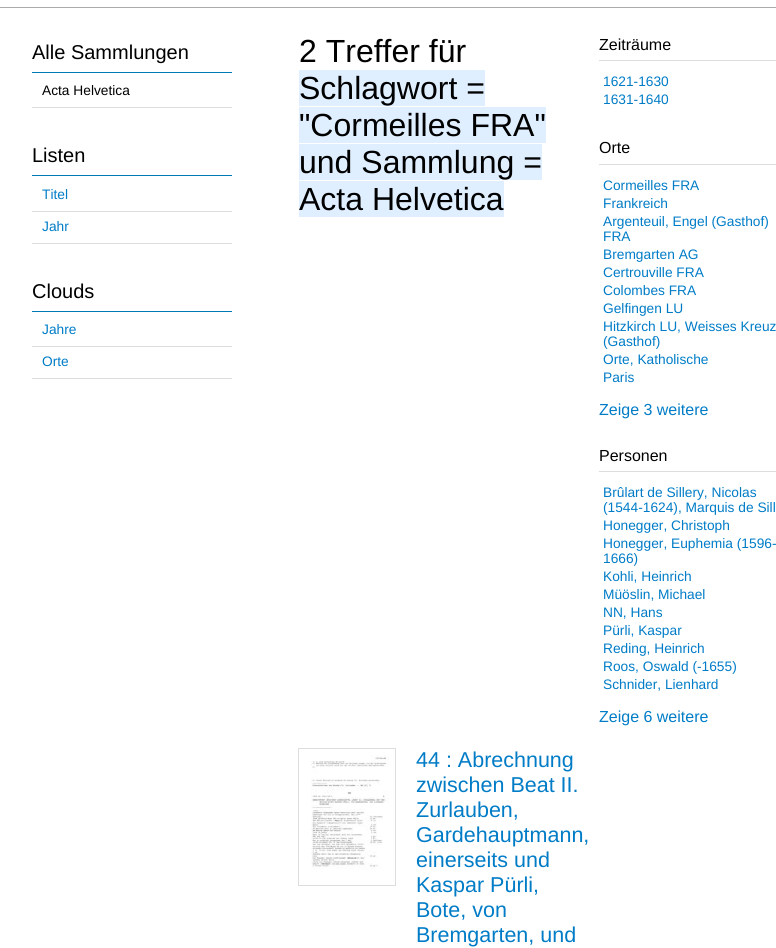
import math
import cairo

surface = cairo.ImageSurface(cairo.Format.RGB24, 776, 948)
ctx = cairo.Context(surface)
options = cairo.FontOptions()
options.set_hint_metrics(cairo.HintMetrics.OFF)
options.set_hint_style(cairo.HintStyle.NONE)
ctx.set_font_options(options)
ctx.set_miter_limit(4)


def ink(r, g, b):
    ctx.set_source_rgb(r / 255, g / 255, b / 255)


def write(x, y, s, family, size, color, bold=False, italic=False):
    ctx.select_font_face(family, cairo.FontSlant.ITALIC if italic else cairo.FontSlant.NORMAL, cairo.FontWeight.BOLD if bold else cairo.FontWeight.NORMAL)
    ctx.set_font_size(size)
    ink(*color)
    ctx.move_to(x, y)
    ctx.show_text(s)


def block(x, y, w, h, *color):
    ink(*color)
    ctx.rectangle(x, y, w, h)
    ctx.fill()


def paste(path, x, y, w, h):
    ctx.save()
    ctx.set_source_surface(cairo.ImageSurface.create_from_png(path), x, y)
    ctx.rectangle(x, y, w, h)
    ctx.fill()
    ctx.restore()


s1 = dict(family="Liberation Sans", size=20, color=(0, 0, 0))
s2 = dict(family="Liberation Sans", size=13.75, color=(0, 0, 0))
s3 = dict(family="Liberation Sans", size=13.75, color=(0, 124, 199))
s4 = dict(family="Liberation Sans", size=32, color=(0, 0, 0))
s5 = dict(family="Liberation Sans", size=16, color=(0, 0, 0))
s6 = dict(family="Liberation Sans", size=16, color=(0, 124, 199))
s7 = dict(family="Liberation Sans", size=21.5, color=(0, 124, 199))

ink(255, 255, 255)
ctx.paint()
block(0, 7, 776, 1, 170, 170, 170)
block(32, 72, 200, 1, 0, 121, 181)
write(32, 59, "Alle Sammlungen", **s1)
block(32, 107, 200, 1, 221, 221, 221)
write(42, 95, "Acta Helvetica", **s2)
block(32, 175, 200, 1, 0, 121, 181)
write(32, 162, "Listen", **s1)
block(32, 211, 200, 1, 221, 221, 221)
write(42, 199, "Titel", **s3)
block(32, 243, 200, 1, 221, 221, 221)
write(42, 231, "Jahr", **s3)
block(32, 311, 200, 1, 0, 121, 181)
write(32, 298, "Clouds", **s1)
block(32, 346, 200, 1, 221, 221, 221)
write(42, 334, "Jahre", **s3)
block(32, 378, 200, 1, 221, 221, 221)
write(42, 366, "Orte", **s3)
write(299, 62, "2 Treffer für", **s4)
block(299, 70, 186, 36, 223, 239, 255)
write(299, 99, "Schlagwort =", **s4)
block(299, 107, 247, 36, 223, 239, 255)
write(299, 136, "\"Cormeilles FRA\"", **s4)
block(299, 144, 243, 36, 223, 239, 255)
write(299, 173, "und Sammlung =", **s4)
block(299, 181, 205, 36, 223, 239, 255)
write(299, 210, "Acta Helvetica", **s4)
block(599, 60, 177, 1, 221, 221, 221)
write(599, 50, "Zeiträume", **s5)
write(603, 86, "1621-1630", **s3)
write(603, 104, "1631-1640", **s3)
block(599, 164, 177, 1, 221, 221, 221)
write(599, 153, "Orte", **s5)
write(603, 190, "Cormeilles FRA", **s3)
write(603, 208, "Frankreich", **s3)
write(603, 226, "Argenteuil, Engel (Gasthof)", **s3)
write(603, 241, "FRA", **s3)
write(603, 259, "Bremgarten AG", **s3)
write(603, 277, "Certrouville FRA", **s3)
write(603, 295, "Colombes FRA", **s3)
write(603, 313, "Gelfingen LU", **s3)
write(603, 331, "Hitzkirch LU, Weisses Kreuz", **s3)
write(603, 346, "(Gasthof)", **s3)
write(603, 364, "Orte, Katholische", **s3)
write(603, 382, "Paris", **s3)
write(599, 415, "Zeige 3 weitere", **s6)
block(599, 471, 177, 1, 221, 221, 221)
write(599, 461, "Personen", **s5)
write(603, 497, "Brûlart de Sillery, Nicolas", **s3)
write(603, 512, "(1544-1624), Marquis de Sill", **s3)
write(603, 530, "Honegger, Christoph", **s3)
write(603, 548, "Honegger, Euphemia (1596-", **s3)
write(603, 563, "1666)", **s3)
write(603, 581, "Kohli, Heinrich", **s3)
write(603, 599, "Müöslin, Michael", **s3)
write(603, 617, "NN, Hans", **s3)
write(603, 635, "Pürli, Kaspar", **s3)
write(603, 653, "Reding, Heinrich", **s3)
write(603, 671, "Roos, Oswald (-1655)", **s3)
write(603, 689, "Schnider, Lienhard", **s3)
write(599, 722, "Zeige 6 weitere", **s6)
ctx.rectangle(298.5, 748.5, 97, 137)
ink(221, 221, 221)
ctx.set_line_width(1)
ctx.stroke()
paste("pic1.png", 299, 749, 96, 136)
write(416, 767, "44 : Abrechnung", **s7)
write(416, 792, "zwischen Beat II.", **s7)
write(416, 817, "Zurlauben,", **s7)
write(416, 842, "Gardehauptmann,", **s7)
write(416, 867, "einerseits und", **s7)
write(416, 892, "Kaspar Pürli,", **s7)
write(416, 917, "Bote, von", **s7)
write(416, 942, "Bremgarten, und", **s7)
surface.write_to_png("screenshot.png")
